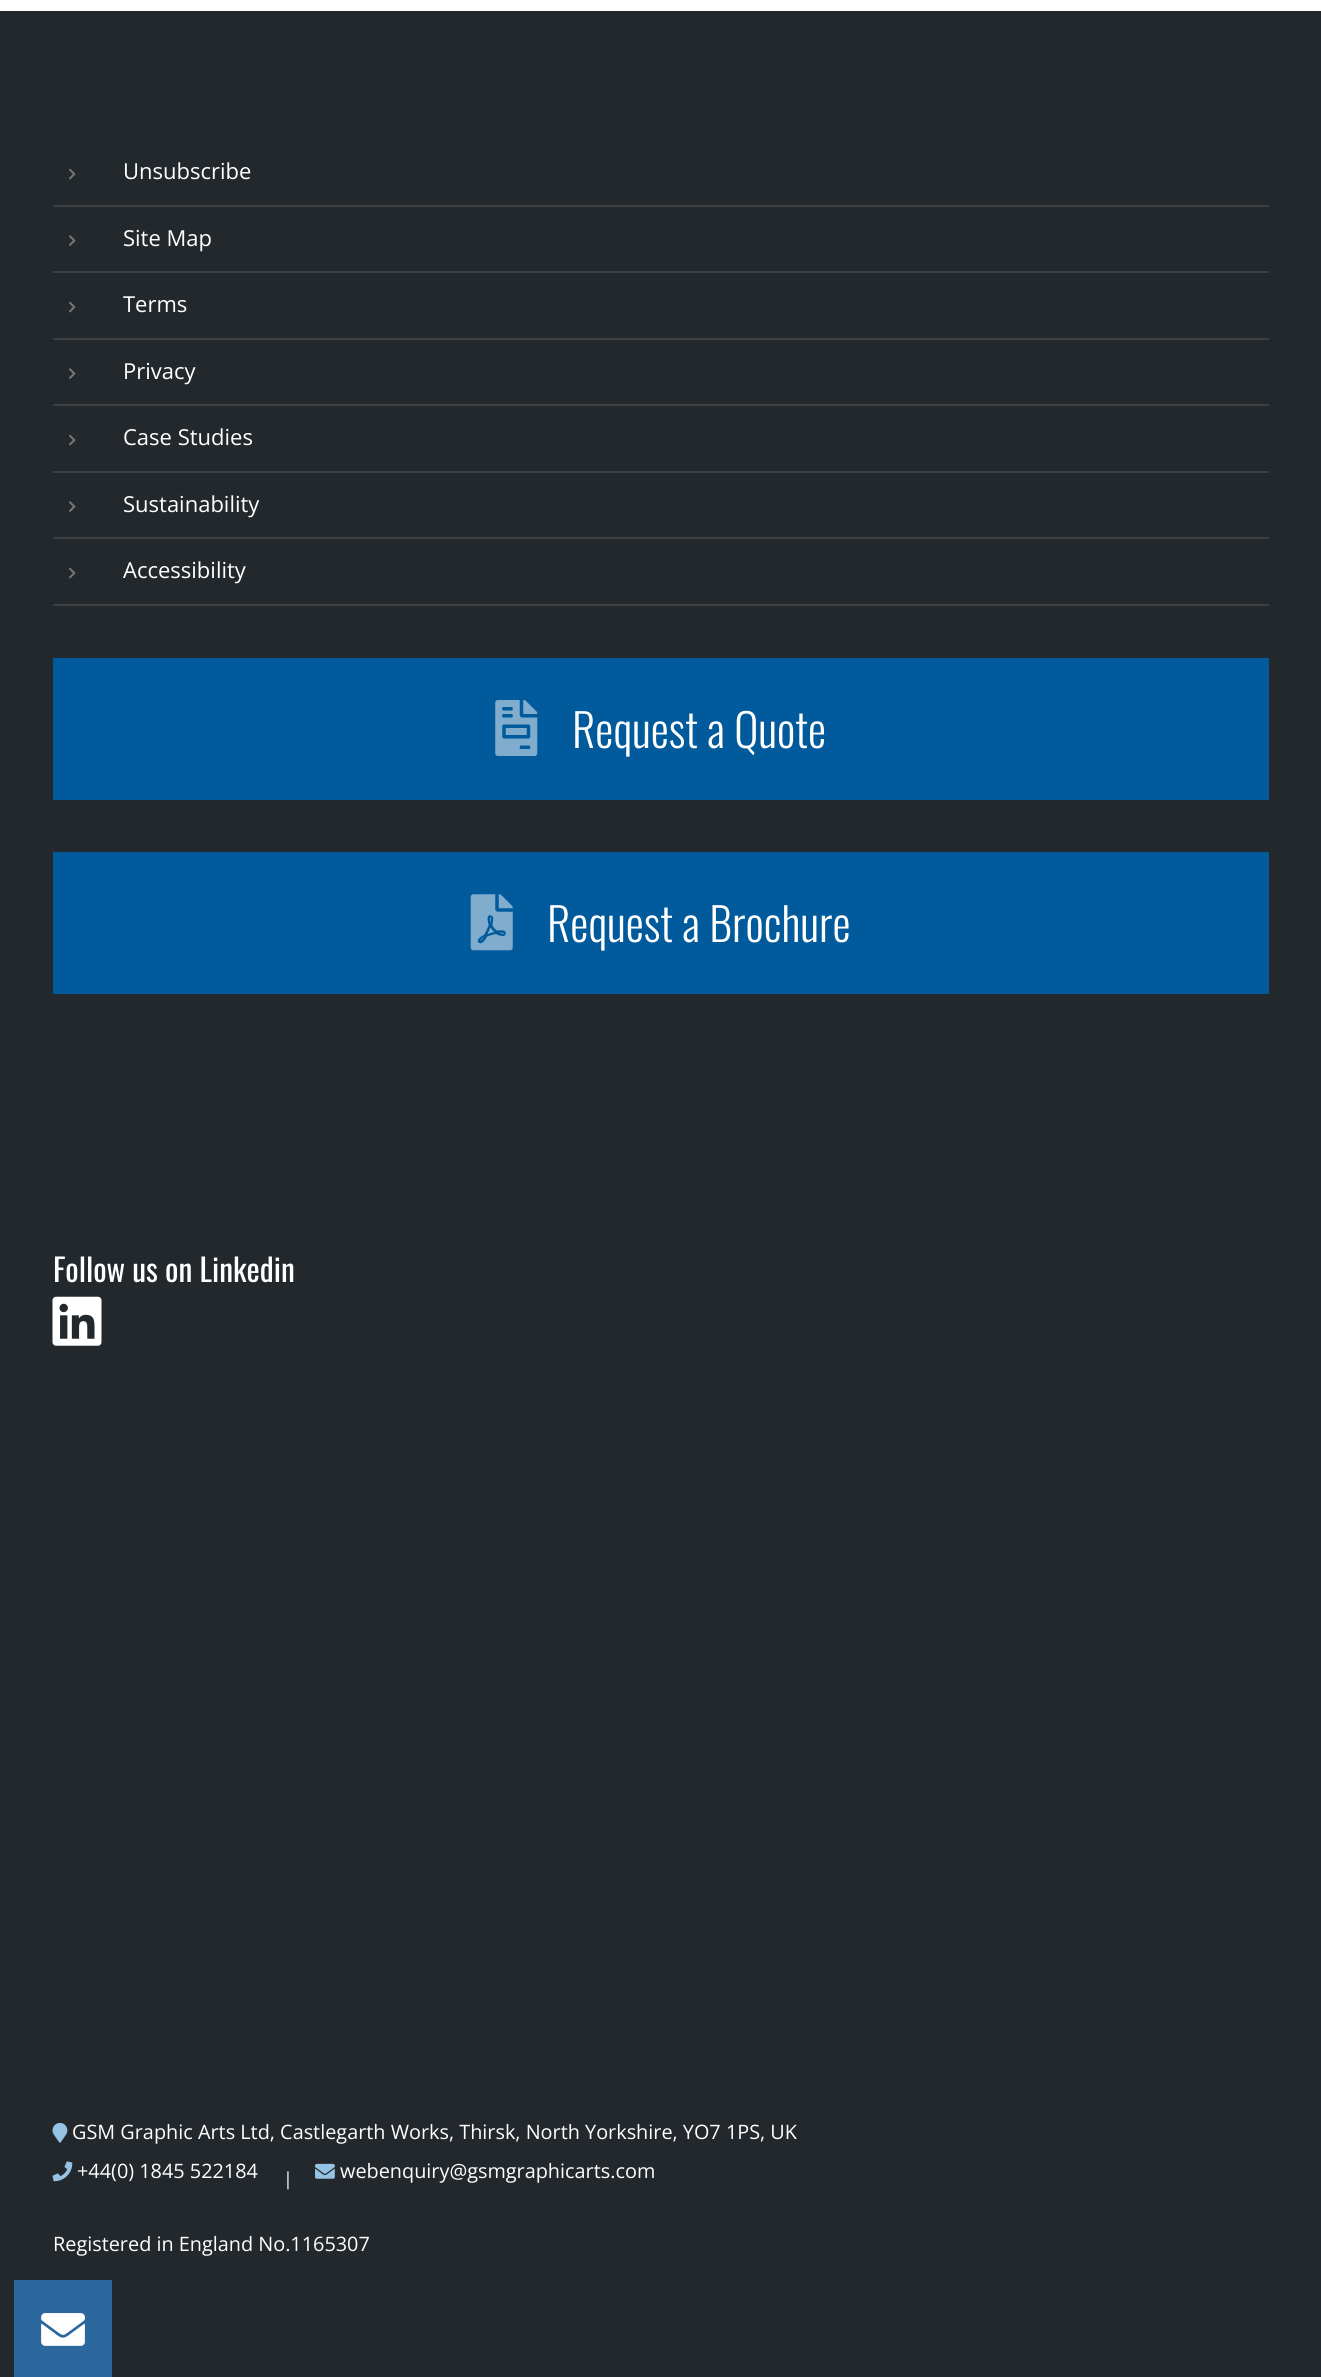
import math
import cairo

surface = cairo.ImageSurface(cairo.Format.RGB24, 1321, 2377)
ctx = cairo.Context(surface)
options = cairo.FontOptions()
options.set_hint_metrics(cairo.HintMetrics.OFF)
options.set_hint_style(cairo.HintStyle.NONE)
ctx.set_font_options(options)
ctx.set_miter_limit(4)


def ink(r, g, b):
    ctx.set_source_rgb(r / 255, g / 255, b / 255)


def write(x, y, s, family, size, color, bold=False, italic=False):
    ctx.select_font_face(family, cairo.FontSlant.ITALIC if italic else cairo.FontSlant.NORMAL, cairo.FontWeight.BOLD if bold else cairo.FontWeight.NORMAL)
    ctx.set_font_size(size)
    ink(*color)
    ctx.move_to(x, y)
    ctx.show_text(s)


def block(x, y, w, h, *color):
    ink(*color)
    ctx.rectangle(x, y, w, h)
    ctx.fill()


def paste(path, x, y, w, h):
    ctx.save()
    ctx.set_source_surface(cairo.ImageSurface.create_from_png(path), x, y)
    ctx.rectangle(x, y, w, h)
    ctx.fill()
    ctx.restore()


s1 = dict(family="Open Sans", size=22, color=(255, 255, 255))
s2 = dict(family="Oswald Light", size=45.5, color=(255, 255, 255))
s3 = dict(family="Oswald", size=31.5, color=(255, 255, 255))
s4 = dict(family="Open Sans", size=19.85, color=(255, 255, 255))
s5 = dict(family="Open Sans", size=18, color=(255, 255, 255))

ink(255, 255, 255)
ctx.paint()
block(0, 11, 1321, 2366, 35, 40, 45)
block(53, 604, 1216, 2, 60, 64, 67)
paste("pic1.png", 69, 168, 7, 12)
write(123, 179, "Unsubscribe", **s1)
block(53, 205, 1216, 2, 60, 64, 67)
paste("pic2.png", 69, 235, 7, 11)
write(123, 246, "Site Map", **s1)
block(53, 271, 1216, 2, 60, 64, 67)
paste("pic1.png", 69, 301, 7, 12)
write(123, 312, "Terms", **s1)
block(53, 338, 1216, 2, 60, 64, 67)
paste("pic2.png", 69, 368, 7, 11)
write(123, 379, "Privacy", **s1)
block(53, 404, 1216, 2, 60, 64, 67)
paste("pic1.png", 69, 434, 7, 12)
write(123, 445, "Case Studies", **s1)
block(53, 471, 1216, 2, 60, 64, 67)
paste("pic2.png", 69, 501, 7, 11)
write(123, 512, "Sustainability", **s1)
block(53, 537, 1216, 2, 60, 64, 67)
paste("pic1.png", 69, 567, 7, 12)
write(123, 578, "Accessibility", **s1)
block(53, 658, 1216, 142, 0, 90, 155)
paste("pic3.png", 495, 700, 43, 56)
write(572, 748, "Request a Quote", **s2)
block(53, 852, 1216, 142, 0, 90, 155)
paste("pic4.png", 470, 894, 43, 57)
write(547, 942, "Request a Brochure", **s2)
write(53, 1282, "Follow us on Linkedin", **s3)
paste("pic5.png", 52, 1296, 50, 50)
paste("pic6.png", 52, 2122, 16, 21)
write(72, 2139, "GSM Graphic Arts Ltd, Castlegarth Works, Thirsk, North Yorkshire, YO7 1PS, UK", **s4)
paste("pic7.png", 52, 2161, 21, 21)
write(77, 2178, "+44(0) 1845 522184", **s4)
block(263, 2160, 2, 21, 33, 38, 42)
write(283, 2185, "|", **s5)
paste("pic8.png", 315, 2163, 20, 16)
write(340, 2178, "webenquiry@gsmgraphicarts.com", **s4)
write(53, 2251, "Registered in England No.1165307", **s4)
block(14, 2280, 98, 97, 44, 104, 157)
paste("pic9.png", 41, 2313, 44, 33)
surface.write_to_png("screenshot.png")
